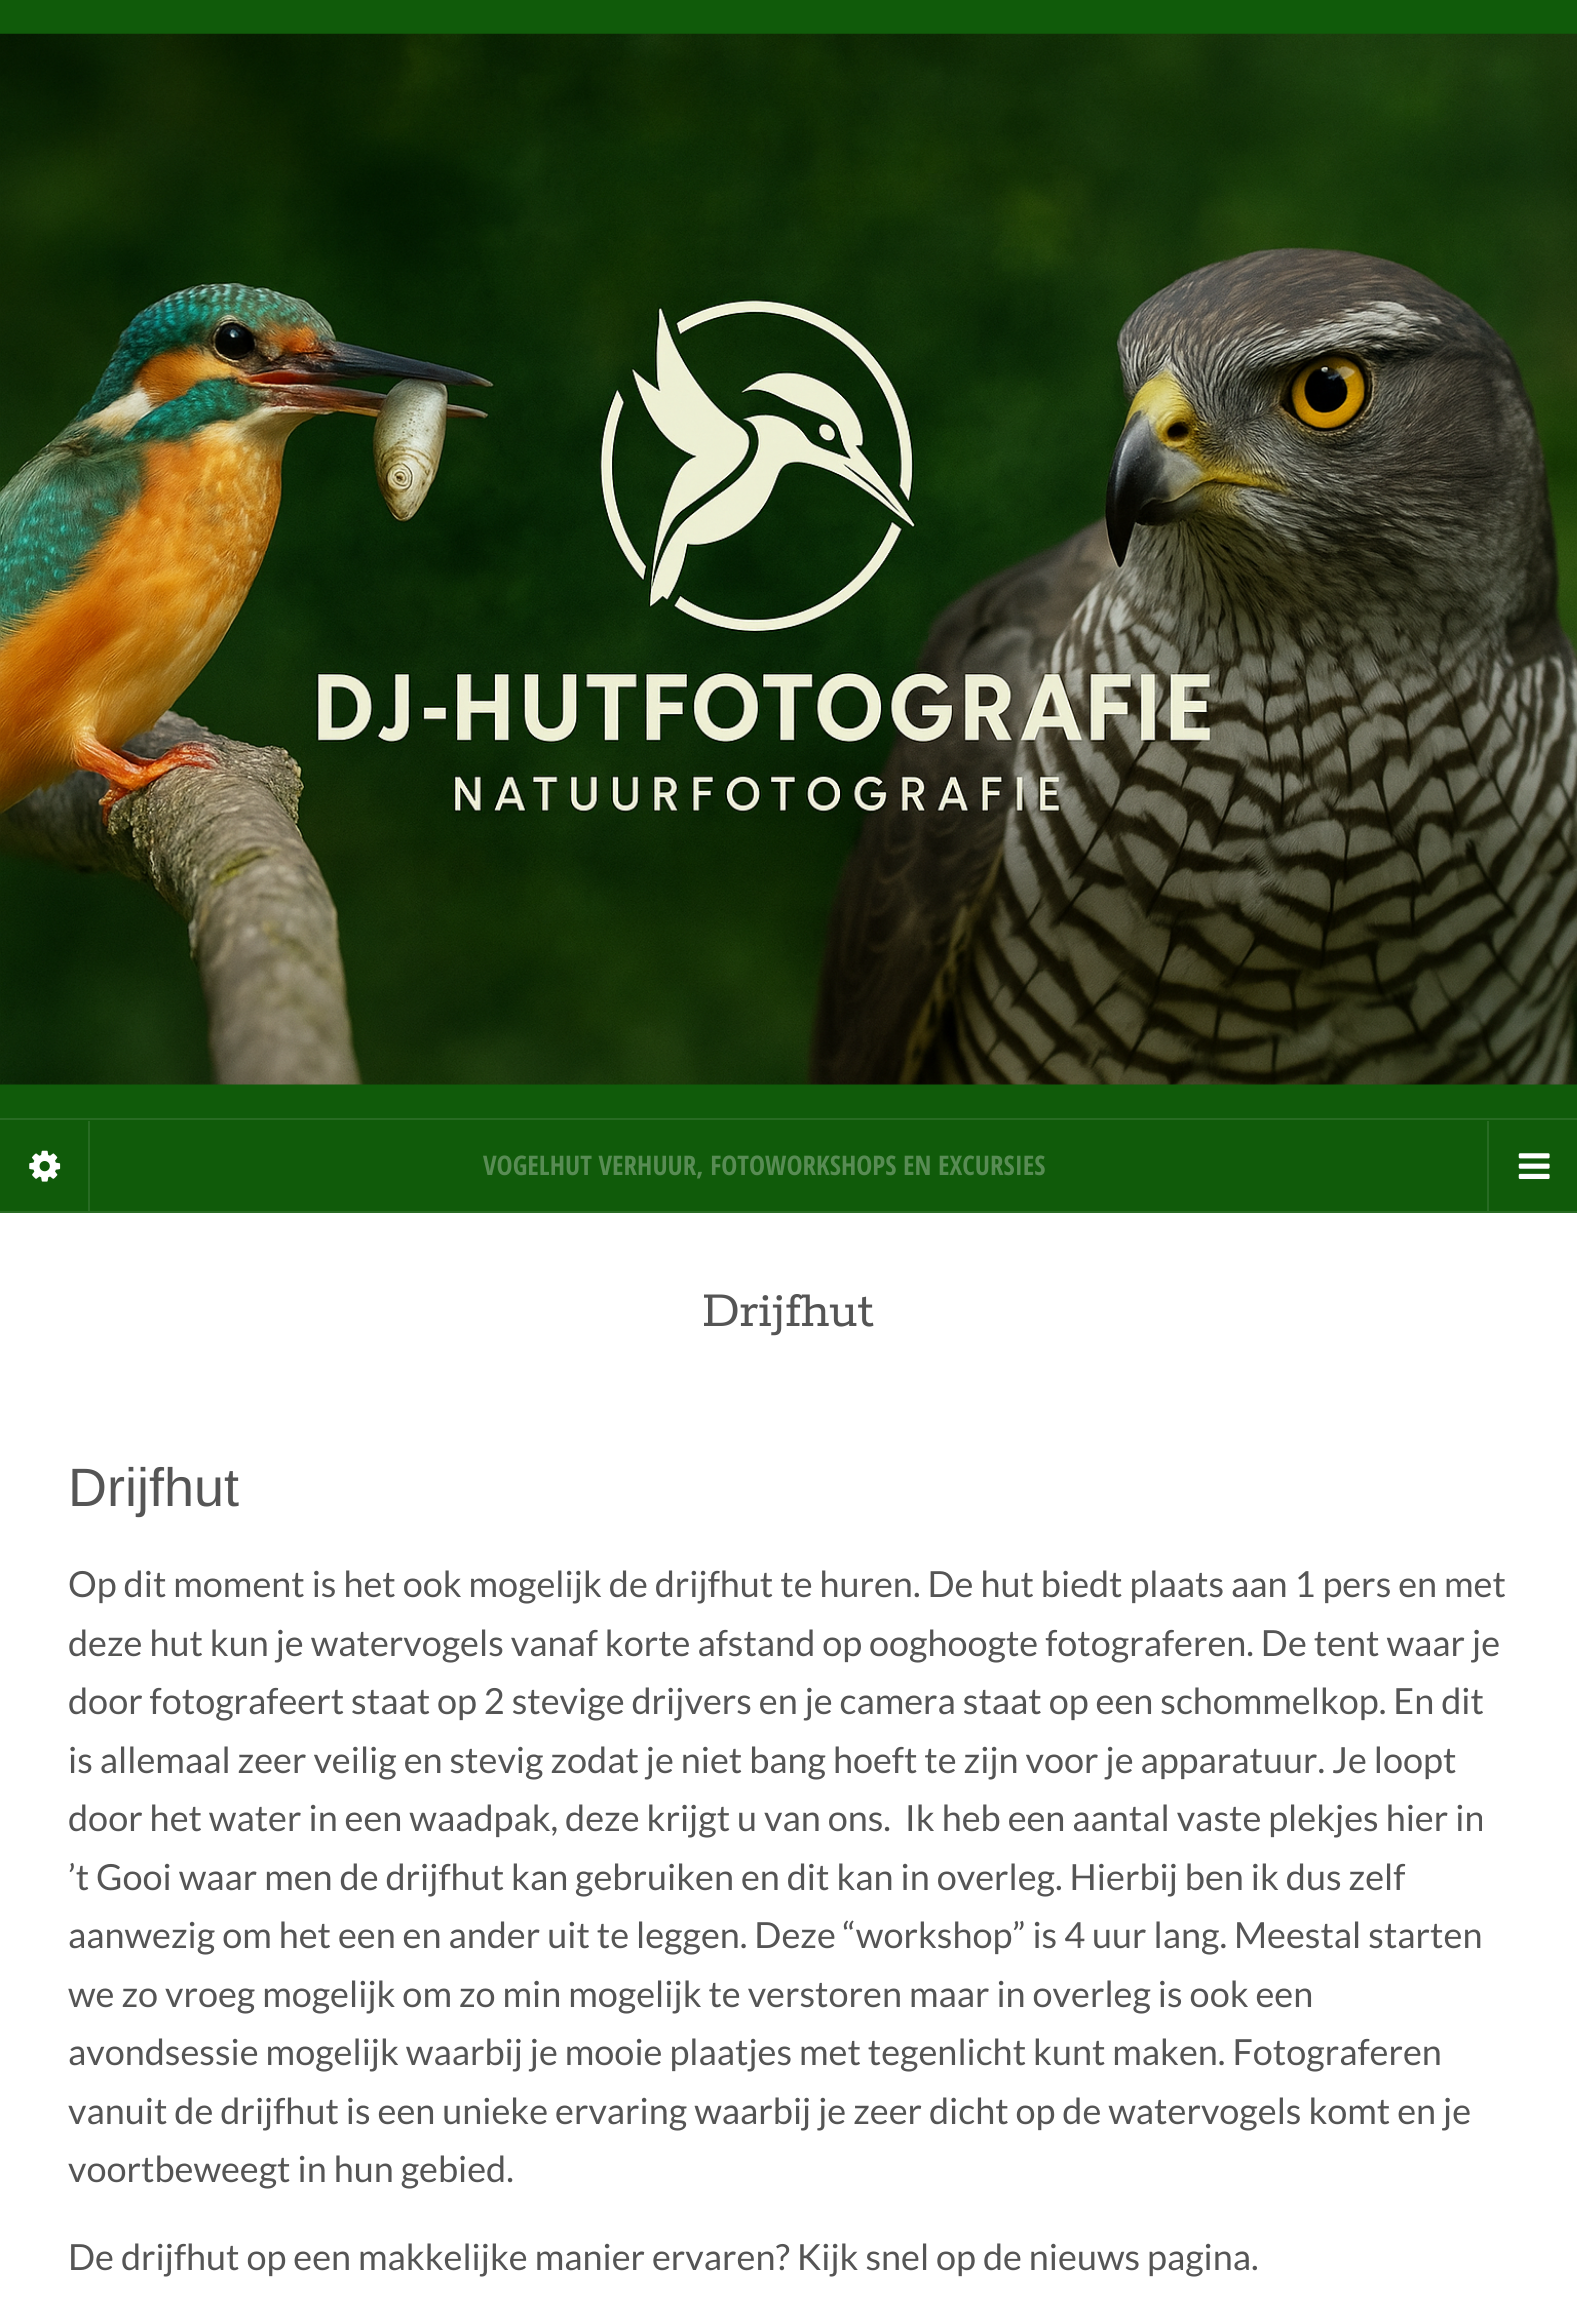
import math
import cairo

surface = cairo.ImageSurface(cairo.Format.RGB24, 1577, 2306)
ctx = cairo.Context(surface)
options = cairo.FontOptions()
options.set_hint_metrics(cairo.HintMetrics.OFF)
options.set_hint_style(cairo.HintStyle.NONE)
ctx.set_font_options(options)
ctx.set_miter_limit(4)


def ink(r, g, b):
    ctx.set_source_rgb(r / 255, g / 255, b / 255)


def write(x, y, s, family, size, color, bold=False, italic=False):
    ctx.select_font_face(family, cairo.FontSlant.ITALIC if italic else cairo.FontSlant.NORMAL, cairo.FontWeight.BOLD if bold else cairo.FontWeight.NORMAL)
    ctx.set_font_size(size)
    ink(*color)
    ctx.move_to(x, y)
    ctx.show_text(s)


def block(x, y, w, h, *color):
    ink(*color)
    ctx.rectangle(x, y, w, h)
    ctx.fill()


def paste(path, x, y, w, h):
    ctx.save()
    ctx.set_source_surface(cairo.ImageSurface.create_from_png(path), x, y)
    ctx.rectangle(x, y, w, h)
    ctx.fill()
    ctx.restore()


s1 = dict(family="Open Sans Condensed", size=27, color=(88, 140, 84), bold=True)
s2 = dict(family="Rokkitt SemiBold", size=54, color=(85, 85, 85))
s3 = dict(family="Liberation Sans", size=54, color=(85, 85, 85))
s4 = dict(family="Lato", size=36, color=(85, 85, 85))

ink(16, 91, 10)
ctx.paint()
block(88, 1121, 2, 90, 40, 107, 35)
paste("pic1.png", 29, 1150, 32, 32)
block(0, 1211, 1577, 2, 40, 107, 35)
block(0, 1118, 1577, 2, 40, 107, 35)
paste("pic2.png", 0, 33, 1577, 1052)
write(483, 1175, "VOGELHUT VERHUUR, FOTOWORKSHOPS EN EXCURSIES", **s1)
block(1487, 1121, 2, 90, 40, 107, 35)
paste("pic3.png", 1518, 1153, 32, 26)
block(0, 1213, 1577, 1093, 255, 255, 255)
write(702, 1326, "Drijfhut", **s2)
write(68, 1506, "Drijfhut", **s3)
write(68, 1597, "Op dit moment is het ook mogelijk de drijfhut te huren. De hut biedt plaats aan 1 pers en met", **s4)
write(68, 1656, "deze hut kun je watervogels vanaf korte afstand op ooghoogte fotograferen. De tent waar je", **s4)
write(68, 1714, "door fotografeert staat op 2 stevige drijvers en je camera staat op een schommelkop. En dit", **s4)
write(68, 1773, "is allemaal zeer veilig en stevig zodat je niet bang hoeft te zijn voor je apparatuur. Je loopt", **s4)
write(68, 1831, "door het water in een waadpak, deze krijgt u van ons.  Ik heb een aantal vaste plekjes hier in", **s4)
write(68, 1890, "’t Gooi waar men de drijfhut kan gebruiken en dit kan in overleg. Hierbij ben ik dus zelf", **s4)
write(68, 1948, "aanwezig om het een en ander uit te leggen. Deze “workshop” is 4 uur lang. Meestal starten", **s4)
write(68, 2007, "we zo vroeg mogelijk om zo min mogelijk te verstoren maar in overleg is ook een", **s4)
write(68, 2065, "avondsessie mogelijk waarbij je mooie plaatjes met tegenlicht kunt maken. Fotograferen", **s4)
write(68, 2124, "vanuit de drijfhut is een unieke ervaring waarbij je zeer dicht op de watervogels komt en je", **s4)
write(68, 2182, "voortbeweegt in hun gebied.", **s4)
write(68, 2270, "De drijfhut op een makkelijke manier ervaren? Kijk snel op de nieuws pagina.", **s4)
surface.write_to_png("screenshot.png")
